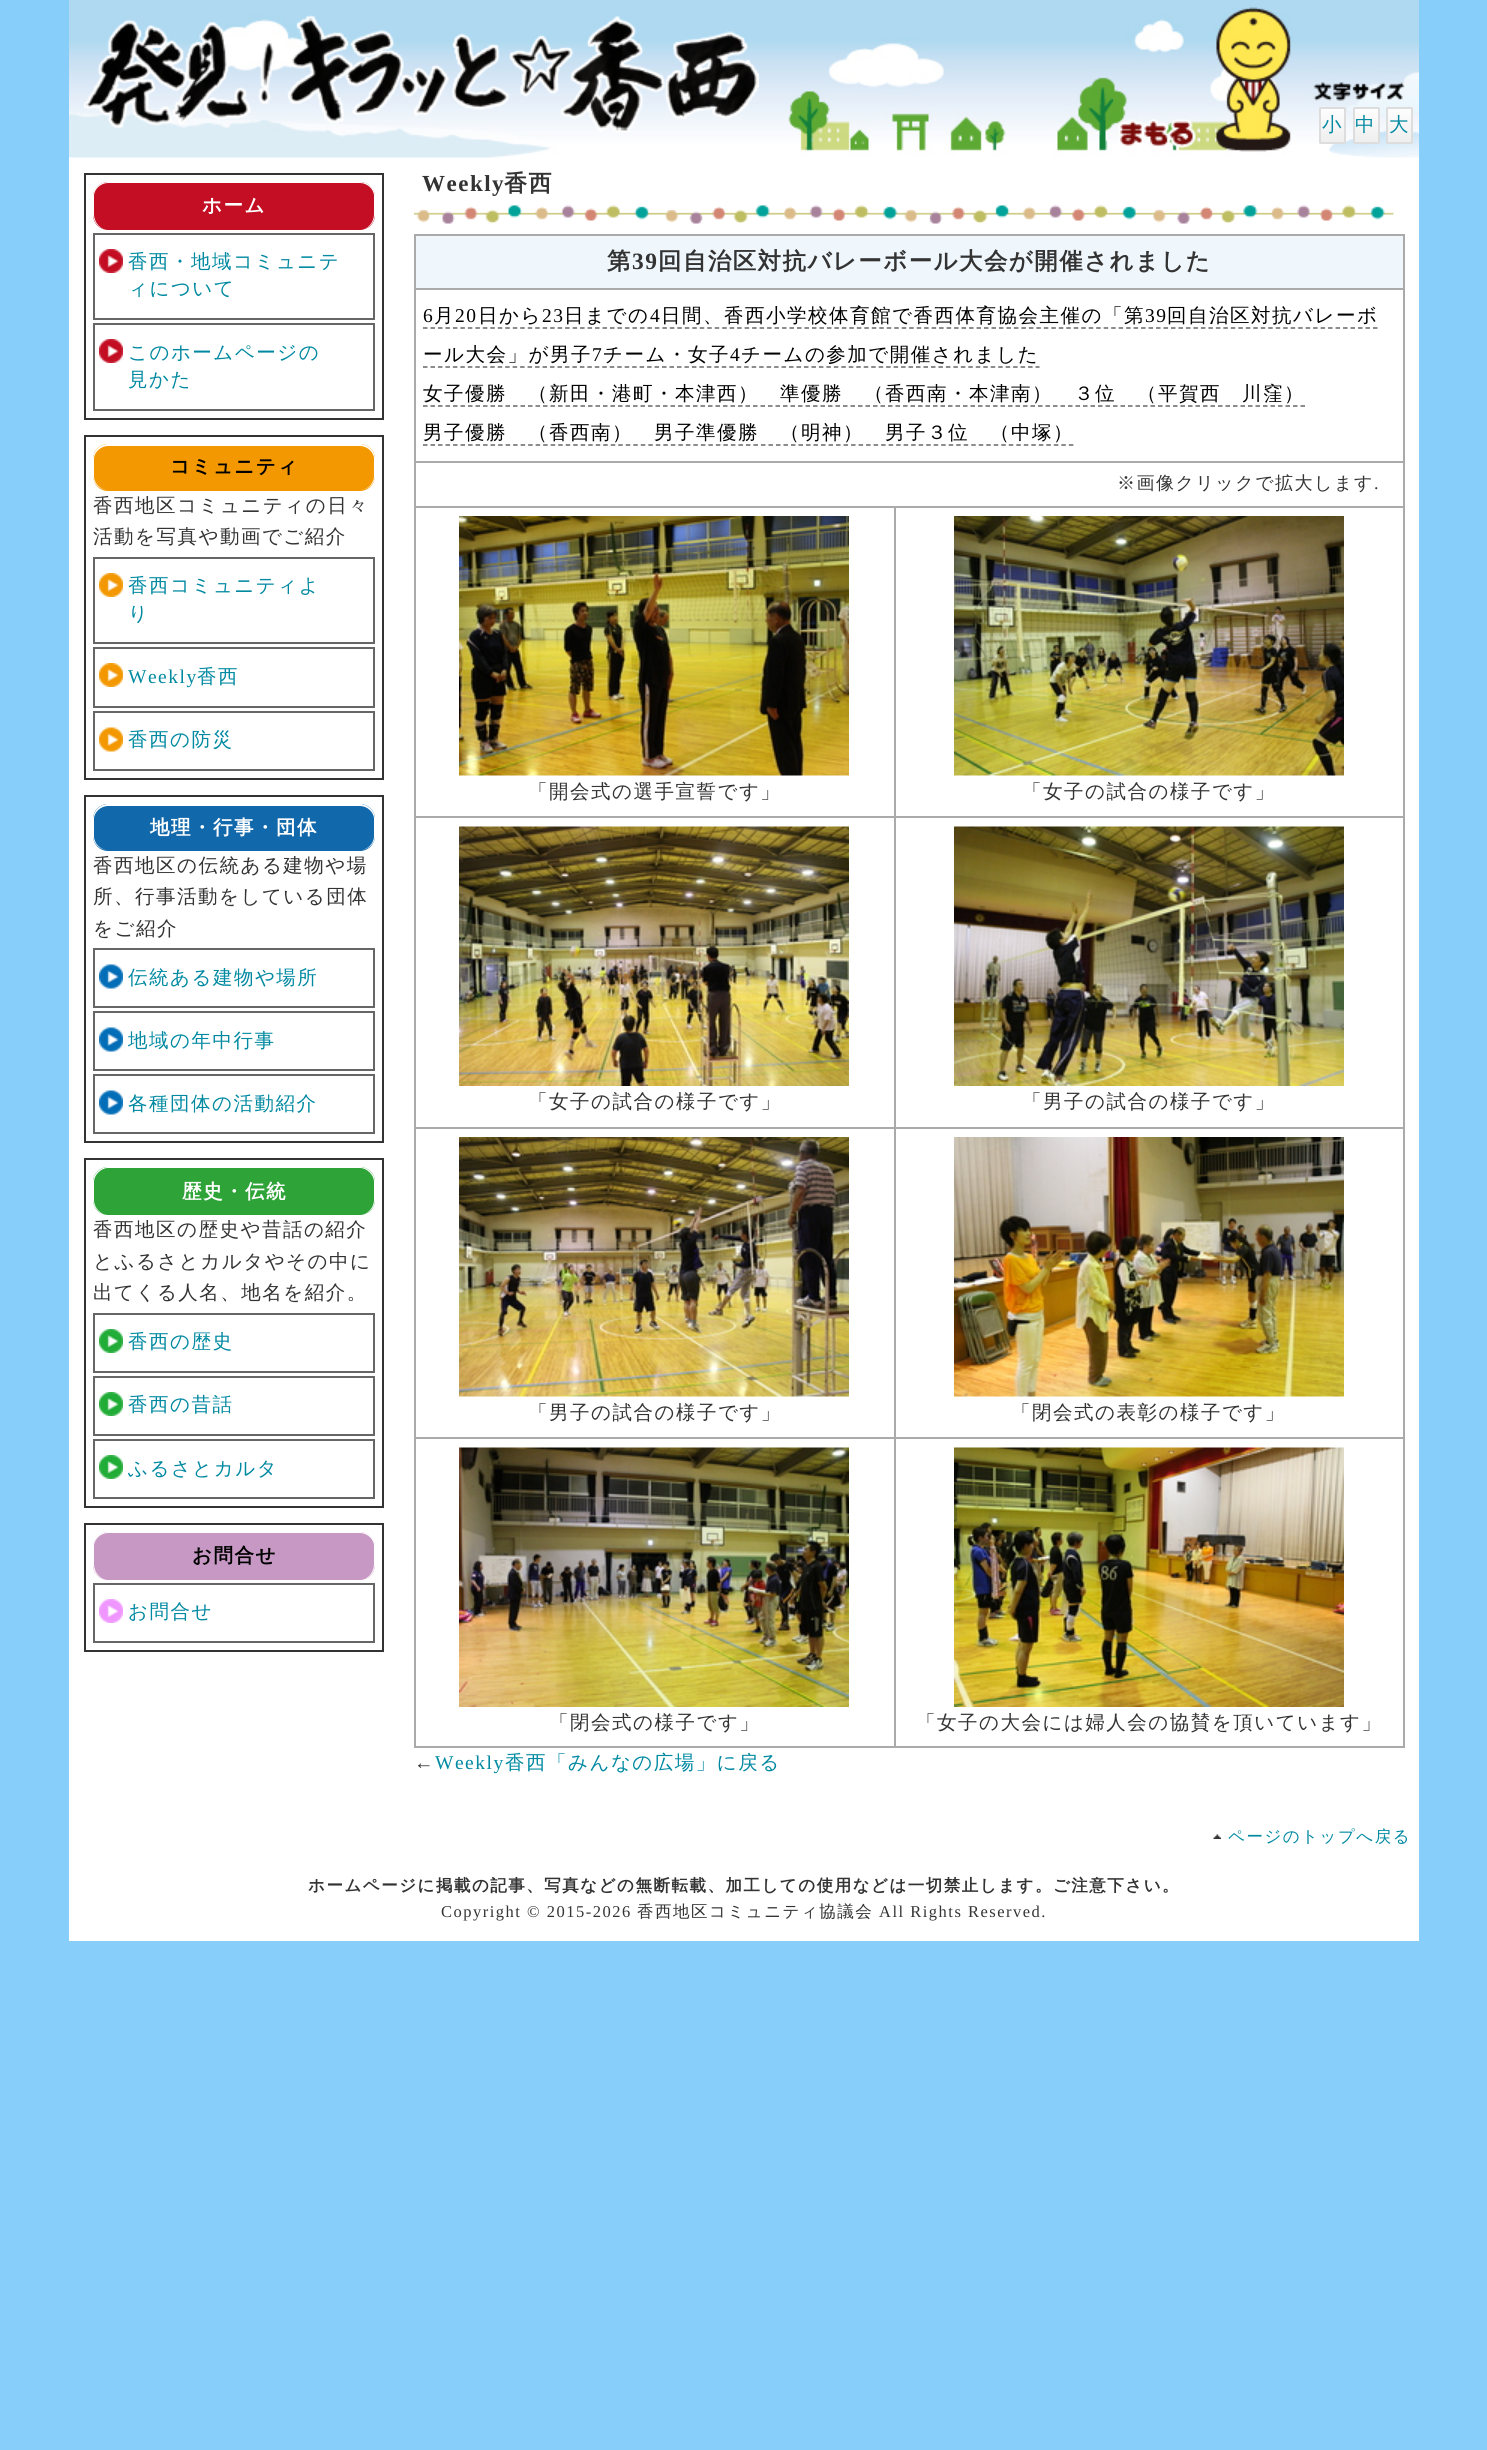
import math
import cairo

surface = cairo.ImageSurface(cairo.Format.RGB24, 1487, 2450)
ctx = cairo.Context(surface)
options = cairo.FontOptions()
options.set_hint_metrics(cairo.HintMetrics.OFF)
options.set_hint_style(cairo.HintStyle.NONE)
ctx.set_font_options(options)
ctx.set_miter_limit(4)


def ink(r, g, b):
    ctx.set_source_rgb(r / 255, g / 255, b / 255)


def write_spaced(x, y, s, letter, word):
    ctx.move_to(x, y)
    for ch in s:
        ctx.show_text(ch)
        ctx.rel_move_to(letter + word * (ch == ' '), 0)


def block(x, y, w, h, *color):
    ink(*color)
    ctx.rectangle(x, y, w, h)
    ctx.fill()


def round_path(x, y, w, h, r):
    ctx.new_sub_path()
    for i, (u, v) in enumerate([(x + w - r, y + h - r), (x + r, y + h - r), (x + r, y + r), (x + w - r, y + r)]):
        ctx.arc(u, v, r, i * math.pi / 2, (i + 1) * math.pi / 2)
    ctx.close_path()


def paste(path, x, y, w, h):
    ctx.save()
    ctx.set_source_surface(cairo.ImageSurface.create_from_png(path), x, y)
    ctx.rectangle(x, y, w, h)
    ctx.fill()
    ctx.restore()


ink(135, 206, 250)
ctx.paint()
block(69, 157, 1350, 1784, 255, 255, 255)
paste("pic1.png", 69, 0, 1350, 158)
paste("pic2.png", 84, 15, 675, 117)
gradient = cairo.LinearGradient(1332, 108, 1332, 143)
gradient.add_color_stop_rgba(0, 0.996, 0.996, 0.996, 1)
gradient.add_color_stop_rgba(1, 0.933, 0.933, 0.933, 1)
ctx.set_source(gradient)
ctx.rectangle(1319, 108, 27, 35)
ctx.fill()
round_path(1320, 108, 25, 35, 0.5)
ink(221, 221, 221)
ctx.stroke()
ctx.select_font_face("WenQuanYi Zen Hei Medium")
ctx.set_font_size(19.5)
ink(0, 137, 161)
write_spaced(1322, 131, "小", 1.5, 0)
gradient = cairo.LinearGradient(1367, 108, 1367, 143)
gradient.add_color_stop_rgba(0, 0.996, 0.996, 0.996, 1)
gradient.add_color_stop_rgba(1, 0.933, 0.933, 0.933, 1)
ctx.set_source(gradient)
ctx.rectangle(1353, 108, 27, 35)
ctx.fill()
round_path(1354, 108, 25, 35, 0.5)
ink(221, 221, 221)
ctx.stroke()
ink(0, 137, 161)
write_spaced(1355, 131, "中", 1.5, 0)
gradient = cairo.LinearGradient(1400, 108, 1400, 143)
gradient.add_color_stop_rgba(0, 0.996, 0.996, 0.996, 1)
gradient.add_color_stop_rgba(1, 0.933, 0.933, 0.933, 1)
ctx.set_source(gradient)
ctx.rectangle(1386, 108, 27, 35)
ctx.fill()
round_path(1387, 108, 25, 35, 0.5)
ink(221, 221, 221)
ctx.stroke()
ink(0, 137, 161)
write_spaced(1389, 131, "大", 1.5, 0)
ctx.rectangle(85, 174, 298, 245)
ink(51, 51, 51)
ctx.stroke()
ink(195, 14, 35)
round_path(93, 182, 282, 48, 15)
ctx.fill()
ink(255, 255, 255)
ctx.set_fill_rule(cairo.FillRule.EVEN_ODD)
ctx.new_path()
ctx.move_to(108, 182)
ctx.line_to(360, 182)
ctx.curve_to(368, 182, 375, 188, 375, 196)
ctx.line_to(375, 214)
ctx.curve_to(375, 223, 368, 230, 360, 230)
ctx.line_to(108, 230)
ctx.curve_to(100, 230, 93, 223, 93, 214)
ctx.line_to(93, 196)
ctx.curve_to(93, 188, 100, 182, 108, 182)
ctx.close_path()
ctx.move_to(108, 183)
ctx.line_to(360, 183)
ctx.curve_to(367, 183, 374, 189, 374, 196)
ctx.line_to(374, 214)
ctx.curve_to(374, 223, 367, 230, 360, 230)
ctx.line_to(108, 230)
ctx.curve_to(101, 230, 94, 223, 94, 214)
ctx.line_to(94, 196)
ctx.curve_to(94, 189, 101, 183, 108, 183)
ctx.close_path()
ctx.fill()
ctx.select_font_face("WenQuanYi Zen Hei", cairo.FontSlant.NORMAL, cairo.FontWeight.BOLD)
write_spaced(202, 212, "ホーム", 1.5, 0)
paste("pic3.png", 99, 249, 24, 24)
ctx.rectangle(94, 234, 280, 85)
ink(102, 102, 102)
ctx.stroke()
ctx.select_font_face("WenQuanYi Zen Hei Medium")
ink(0, 137, 161)
write_spaced(128, 268, "香西・地域コミュニテ", 1.5, 0)
write_spaced(128, 295, "ィについて", 1.5, 0)
paste("pic3.png", 99, 339, 24, 24)
ctx.rectangle(94, 324, 280, 86)
ink(102, 102, 102)
ctx.stroke()
ink(0, 137, 161)
write_spaced(128, 359, "このホームページの", 1.5, 0)
write_spaced(128, 386, "見かた", 1.5, 0)
ctx.rectangle(85, 436, 298, 343)
ink(51, 51, 51)
ctx.stroke()
ink(243, 152, 0)
round_path(93, 444, 282, 47, 15)
ctx.fill()
ink(255, 255, 255)
ctx.new_path()
ctx.move_to(108, 444)
ctx.line_to(360, 444)
ctx.curve_to(368, 444, 375, 451, 375, 459)
ctx.line_to(375, 476)
ctx.curve_to(375, 484, 368, 490, 360, 490)
ctx.line_to(108, 490)
ctx.curve_to(100, 490, 93, 484, 93, 476)
ctx.line_to(93, 459)
ctx.curve_to(93, 451, 100, 444, 108, 444)
ctx.close_path()
ctx.move_to(108, 446)
ctx.line_to(360, 446)
ctx.curve_to(367, 446, 374, 452, 374, 459)
ctx.line_to(374, 476)
ctx.curve_to(374, 484, 367, 490, 360, 490)
ctx.line_to(108, 490)
ctx.curve_to(101, 490, 94, 484, 94, 476)
ctx.line_to(94, 459)
ctx.curve_to(94, 452, 101, 446, 108, 446)
ctx.close_path()
ctx.fill()
ctx.select_font_face("WenQuanYi Zen Hei", cairo.FontSlant.NORMAL, cairo.FontWeight.BOLD)
ink(0, 0, 0)
write_spaced(170, 473, "コミュニティ", 1.5, 0)
ctx.select_font_face("WenQuanYi Zen Hei Medium")
ink(51, 51, 51)
write_spaced(93, 512, "香西地区コミュニティの日々", 1.5, 0)
write_spaced(93, 543, "活動を写真や動画でご紹介", 1.5, 0)
paste("pic4.png", 99, 573, 24, 24)
ctx.rectangle(94, 558, 280, 85)
ink(102, 102, 102)
ctx.stroke()
ink(0, 137, 161)
write_spaced(128, 592, "香西コミュニティよ", 1.5, 0)
write_spaced(128, 620, "り", 1.5, 0)
paste("pic4.png", 99, 663, 24, 24)
ctx.rectangle(94, 648, 280, 59)
ink(102, 102, 102)
ctx.stroke()
ctx.select_font_face("Liberation Serif")
ink(0, 137, 161)
write_spaced(128, 683, "Weekly", 1.5, 0)
ctx.select_font_face("WenQuanYi Zen Hei Medium")
write_spaced(197, 683, "香西", 1.5, 0)
paste("pic5.png", 99, 727, 24, 25)
ctx.rectangle(94, 712, 280, 58)
ink(102, 102, 102)
ctx.stroke()
ink(0, 137, 161)
write_spaced(128, 746, "香西の防災", 1.5, 0)
ctx.rectangle(85, 796, 298, 346)
ink(51, 51, 51)
ctx.stroke()
ink(17, 104, 171)
round_path(93, 804, 282, 47, 15)
ctx.fill()
ink(255, 255, 255)
ctx.new_path()
ctx.move_to(108, 804)
ctx.line_to(360, 804)
ctx.curve_to(368, 804, 375, 811, 375, 819)
ctx.line_to(375, 836)
ctx.curve_to(375, 844, 368, 850, 360, 850)
ctx.line_to(108, 850)
ctx.curve_to(100, 850, 93, 844, 93, 836)
ctx.line_to(93, 819)
ctx.curve_to(93, 811, 100, 804, 108, 804)
ctx.close_path()
ctx.move_to(108, 806)
ctx.line_to(360, 806)
ctx.curve_to(367, 806, 374, 812, 374, 819)
ctx.line_to(374, 836)
ctx.curve_to(374, 844, 367, 850, 360, 850)
ctx.line_to(108, 850)
ctx.curve_to(101, 850, 94, 844, 94, 836)
ctx.line_to(94, 819)
ctx.curve_to(94, 812, 101, 806, 108, 806)
ctx.close_path()
ctx.fill()
ctx.select_font_face("WenQuanYi Zen Hei", cairo.FontSlant.NORMAL, cairo.FontWeight.BOLD)
write_spaced(150, 834, "地理・行事・団体", 1.5, 0)
ctx.select_font_face("WenQuanYi Zen Hei Medium")
ink(51, 51, 51)
write_spaced(93, 872, "香西地区の伝統ある建物や場", 1.5, 0)
write_spaced(93, 903, "所、行事活動をしている団体", 1.5, 0)
write_spaced(93, 935, "をご紹介", 1.5, 0)
paste("pic6.png", 99, 964, 24, 25)
ctx.rectangle(94, 949, 280, 58)
ink(102, 102, 102)
ctx.stroke()
ink(0, 137, 161)
write_spaced(128, 984, "伝統ある建物や場所", 1.5, 0)
paste("pic6.png", 99, 1027, 24, 25)
ctx.rectangle(94, 1012, 280, 58)
ink(102, 102, 102)
ctx.stroke()
ink(0, 137, 161)
write_spaced(128, 1047, "地域の年中行事", 1.5, 0)
paste("pic6.png", 99, 1090, 24, 25)
ctx.rectangle(94, 1075, 280, 58)
ink(102, 102, 102)
ctx.stroke()
ink(0, 137, 161)
write_spaced(128, 1110, "各種団体の活動紹介", 1.5, 0)
ctx.rectangle(85, 1159, 298, 348)
ink(51, 51, 51)
ctx.stroke()
ink(46, 163, 56)
round_path(93, 1167, 282, 48, 15)
ctx.fill()
ink(255, 255, 255)
ctx.new_path()
ctx.move_to(108, 1167)
ctx.line_to(360, 1167)
ctx.curve_to(368, 1167, 375, 1174, 375, 1182)
ctx.line_to(375, 1200)
ctx.curve_to(375, 1208, 368, 1215, 360, 1215)
ctx.line_to(108, 1215)
ctx.curve_to(100, 1215, 93, 1208, 93, 1200)
ctx.line_to(93, 1182)
ctx.curve_to(93, 1174, 100, 1167, 108, 1167)
ctx.close_path()
ctx.move_to(108, 1168)
ctx.line_to(360, 1168)
ctx.curve_to(367, 1168, 374, 1175, 374, 1182)
ctx.line_to(374, 1200)
ctx.curve_to(374, 1208, 367, 1215, 360, 1215)
ctx.line_to(108, 1215)
ctx.curve_to(101, 1215, 94, 1208, 94, 1200)
ctx.line_to(94, 1182)
ctx.curve_to(94, 1175, 101, 1168, 108, 1168)
ctx.close_path()
ctx.fill()
ctx.select_font_face("WenQuanYi Zen Hei", cairo.FontSlant.NORMAL, cairo.FontWeight.BOLD)
write_spaced(182, 1198, "歴史・伝統", 1.5, 0)
ctx.select_font_face("WenQuanYi Zen Hei Medium")
ink(51, 51, 51)
write_spaced(93, 1236, "香西地区の歴史や昔話の紹介", 1.5, 0)
write_spaced(93, 1268, "とふるさとカルタやその中に", 1.5, 0)
write_spaced(93, 1299, "出てくる人名、地名を紹介。", 1.5, 0)
paste("pic7.png", 99, 1329, 24, 24)
ctx.rectangle(94, 1314, 280, 58)
ink(102, 102, 102)
ctx.stroke()
ink(0, 137, 161)
write_spaced(128, 1348, "香西の歴史", 1.5, 0)
paste("pic7.png", 99, 1392, 24, 24)
ctx.rectangle(94, 1377, 280, 58)
ink(102, 102, 102)
ctx.stroke()
ink(0, 137, 161)
write_spaced(128, 1411, "香西の昔話", 1.5, 0)
paste("pic7.png", 99, 1455, 24, 24)
ctx.rectangle(94, 1440, 280, 58)
ink(102, 102, 102)
ctx.stroke()
ink(0, 137, 161)
write_spaced(128, 1475, "ふるさとカルタ", 1.5, 0)
ctx.rectangle(85, 1524, 298, 127)
ink(51, 51, 51)
ctx.stroke()
ink(199, 152, 196)
round_path(93, 1532, 282, 48, 15)
ctx.fill()
ink(255, 255, 255)
ctx.new_path()
ctx.move_to(108, 1532)
ctx.line_to(360, 1532)
ctx.curve_to(368, 1532, 375, 1538, 375, 1546)
ctx.line_to(375, 1564)
ctx.curve_to(375, 1573, 368, 1580, 360, 1580)
ctx.line_to(108, 1580)
ctx.curve_to(100, 1580, 93, 1573, 93, 1564)
ctx.line_to(93, 1546)
ctx.curve_to(93, 1538, 100, 1532, 108, 1532)
ctx.close_path()
ctx.move_to(108, 1533)
ctx.line_to(360, 1533)
ctx.curve_to(367, 1533, 374, 1539, 374, 1546)
ctx.line_to(374, 1564)
ctx.curve_to(374, 1573, 367, 1580, 360, 1580)
ctx.line_to(108, 1580)
ctx.curve_to(101, 1580, 94, 1573, 94, 1564)
ctx.line_to(94, 1546)
ctx.curve_to(94, 1539, 101, 1533, 108, 1533)
ctx.close_path()
ctx.fill()
ctx.select_font_face("WenQuanYi Zen Hei", cairo.FontSlant.NORMAL, cairo.FontWeight.BOLD)
ink(0, 0, 0)
write_spaced(192, 1562, "お問合せ", 1.5, 0)
paste("pic8.png", 99, 1599, 24, 24)
ctx.rectangle(94, 1584, 280, 58)
ink(102, 102, 102)
ctx.stroke()
ctx.select_font_face("WenQuanYi Zen Hei Medium")
ink(0, 137, 161)
write_spaced(128, 1618, "お問合せ", 1.5, 0)
paste("pic9.png", 414, 205, 980, 19)
ctx.select_font_face("Liberation Serif", cairo.FontSlant.NORMAL, cairo.FontWeight.BOLD)
ctx.set_font_size(23)
ink(51, 51, 51)
write_spaced(422, 191, "Weekly", 1.5, 0)
ctx.select_font_face("WenQuanYi Zen Hei", cairo.FontSlant.NORMAL, cairo.FontWeight.BOLD)
write_spaced(504, 191, "香西", 1.5, 0)
block(416, 236, 987, 52, 240, 247, 252)
block(414, 234, 990, 2, 170, 170, 170)
block(414, 288, 990, 2, 170, 170, 170)
block(414, 461, 990, 2, 170, 170, 170)
block(894, 506, 510, 2, 170, 170, 170)
block(894, 816, 510, 2, 170, 170, 170)
block(894, 1127, 510, 2, 170, 170, 170)
block(894, 1437, 510, 2, 170, 170, 170)
block(1403, 1437, 2, 311, 170, 170, 170)
block(1403, 1127, 2, 312, 170, 170, 170)
block(1403, 816, 2, 312, 170, 170, 170)
block(1403, 506, 2, 312, 170, 170, 170)
block(1403, 461, 2, 46, 170, 170, 170)
block(1403, 288, 2, 174, 170, 170, 170)
block(1403, 234, 2, 56, 170, 170, 170)
block(894, 1746, 510, 2, 170, 170, 170)
block(894, 1437, 2, 311, 170, 170, 170)
block(414, 1437, 482, 2, 170, 170, 170)
block(894, 1127, 2, 312, 170, 170, 170)
block(414, 1127, 482, 2, 170, 170, 170)
block(894, 816, 2, 312, 170, 170, 170)
block(414, 816, 482, 2, 170, 170, 170)
block(894, 506, 2, 312, 170, 170, 170)
block(414, 506, 482, 2, 170, 170, 170)
block(414, 1746, 482, 2, 170, 170, 170)
block(414, 1437, 2, 311, 170, 170, 170)
block(414, 1127, 2, 312, 170, 170, 170)
block(414, 816, 2, 312, 170, 170, 170)
block(414, 506, 2, 312, 170, 170, 170)
block(414, 461, 2, 46, 170, 170, 170)
block(414, 288, 2, 174, 170, 170, 170)
block(414, 234, 2, 56, 170, 170, 170)
ctx.set_font_size(23.4)
ink(51, 51, 51)
write_spaced(607, 269, "第", 1.5, 0)
ctx.select_font_face("Liberation Serif", cairo.FontSlant.NORMAL, cairo.FontWeight.BOLD)
write_spaced(632, 269, "39", 1.5, 0)
ctx.select_font_face("WenQuanYi Zen Hei", cairo.FontSlant.NORMAL, cairo.FontWeight.BOLD)
write_spaced(658, 269, "回自治区対抗バレーボール大会が開催されました", 1.5, 0)
ctx.select_font_face("Liberation Serif")
ctx.set_font_size(19.5)
ink(0, 0, 0)
write_spaced(423, 322, "6", 1.5, 0)
ctx.new_path()
ctx.move_to(423, 328)
ctx.line_to(1378.5, 328)
ink(102, 102, 102)
ctx.set_line_width(1.5)
ctx.set_dash([4.5, 2.98])
ctx.stroke()
ctx.select_font_face("WenQuanYi Zen Hei Medium")
ink(0, 0, 0)
write_spaced(434, 322, "月", 1.5, 0)
ctx.select_font_face("Liberation Serif")
write_spaced(455, 322, "20", 1.5, 0)
ctx.select_font_face("WenQuanYi Zen Hei Medium")
write_spaced(478, 322, "日から", 1.5, 0)
ctx.select_font_face("Liberation Serif")
write_spaced(542, 322, "23", 1.5, 0)
ctx.select_font_face("WenQuanYi Zen Hei Medium")
write_spaced(564, 322, "日までの", 1.5, 0)
ctx.select_font_face("Liberation Serif")
write_spaced(650, 322, "4", 1.5, 0)
ctx.select_font_face("WenQuanYi Zen Hei Medium")
write_spaced(661, 322, "日間、香西小学校体育館で香西体育協会主催の「第", 1.5, 0)
ctx.select_font_face("Liberation Serif")
write_spaced(1145, 322, "39", 1.5, 0)
ctx.select_font_face("WenQuanYi Zen Hei Medium")
write_spaced(1167, 322, "回自治区対抗バレーボ", 1.5, 0)
write_spaced(423, 361, "ール大会」が男子", 1.5, 0)
ctx.select_font_face("Liberation Serif")
write_spaced(592, 361, "7", 1.5, 0)
ctx.new_path()
ctx.move_to(423, 367)
ctx.line_to(1039.5, 367)
ink(102, 102, 102)
ctx.set_dash([4.5, 2.97])
ctx.stroke()
ctx.select_font_face("WenQuanYi Zen Hei Medium")
ink(0, 0, 0)
write_spaced(603, 361, "チーム・女子", 1.5, 0)
ctx.select_font_face("Liberation Serif")
write_spaced(730, 361, "4", 1.5, 0)
ctx.select_font_face("WenQuanYi Zen Hei Medium")
write_spaced(741, 361, "チームの参加で開催されました", 1.5, 0)
write_spaced(423, 400, "女子優勝　（新田・港町・本津西）　準優勝　（香西南・本津南）　３位　（平賀西　川窪）", 1.5, 0)
ctx.new_path()
ctx.move_to(423, 406)
ctx.line_to(1305, 406)
ink(102, 102, 102)
ctx.set_dash([4.5, 3])
ctx.stroke()
ink(0, 0, 0)
write_spaced(423, 439, "男子優勝　（香西南）　男子準優勝　（明神）　男子３位　（中塚）", 1.5, 0)
ctx.new_path()
ctx.move_to(423, 445)
ctx.line_to(1074, 445)
ink(102, 102, 102)
ctx.set_dash([4.5, 3.01])
ctx.stroke()
ctx.set_font_size(18)
ink(51, 51, 51)
write_spaced(1117, 489, "※画像クリックで拡大します", 1.5, 0)
ctx.select_font_face("Liberation Serif")
write_spaced(1374, 489, ".", 1.5, 0)
paste("pic10.png", 459, 516, 390, 260)
ctx.select_font_face("WenQuanYi Zen Hei Medium")
ctx.set_font_size(19.5)
write_spaced(528, 798, "「開会式の選手宣誓です」", 1.5, 0)
paste("pic11.png", 954, 516, 390, 260)
write_spaced(1022, 798, "「女子の試合の様子です」", 1.5, 0)
paste("pic12.png", 459, 826, 390, 260)
write_spaced(528, 1108, "「女子の試合の様子です」", 1.5, 0)
paste("pic13.png", 954, 826, 390, 260)
write_spaced(1022, 1108, "「男子の試合の様子です」", 1.5, 0)
paste("pic14.png", 459, 1137, 390, 260)
write_spaced(528, 1419, "「男子の試合の様子です」", 1.5, 0)
paste("pic15.png", 954, 1137, 390, 260)
write_spaced(1011, 1419, "「閉会式の表彰の様子です」", 1.5, 0)
paste("pic16.png", 459, 1447, 390, 260)
write_spaced(549, 1729, "「閉会式の様子です」", 1.5, 0)
paste("pic17.png", 954, 1447, 390, 260)
write_spaced(916, 1729, "「女子の大会には婦人会の協賛を頂いています」", 1.5, 0)
ctx.select_font_face("Liberation Serif")
write_spaced(414, 1769, "←", 1.5, 0)
ink(0, 137, 161)
write_spaced(435, 1769, "Weekly", 1.5, 0)
ctx.select_font_face("WenQuanYi Zen Hei Medium")
write_spaced(505, 1769, "香西「みんなの広場」に戻る", 1.5, 0)
paste("pic18.png", 1213, 1834, 8, 5)
ctx.set_font_size(16.5)
write_spaced(1228, 1842, "ページのトップへ戻る", 1.5, 0)
ctx.select_font_face("WenQuanYi Zen Hei", cairo.FontSlant.NORMAL, cairo.FontWeight.BOLD)
ink(51, 51, 51)
write_spaced(308, 1891, "ホームページに掲載の記事、写真などの無断転載、加工しての使用などは一切禁止します。ご注意下さい。", 1.5, 0)
ctx.select_font_face("Liberation Serif")
write_spaced(441, 1917, "Copyright © 2015-2026", 1.5, 0)
ctx.select_font_face("WenQuanYi Zen Hei Medium")
write_spaced(637, 1917, "香西地区コミュニティ協議会", 1.5, 0)
ctx.select_font_face("Liberation Serif")
write_spaced(879, 1917, "All Rights Reserved.", 1.5, 0)
surface.write_to_png("screenshot.png")
